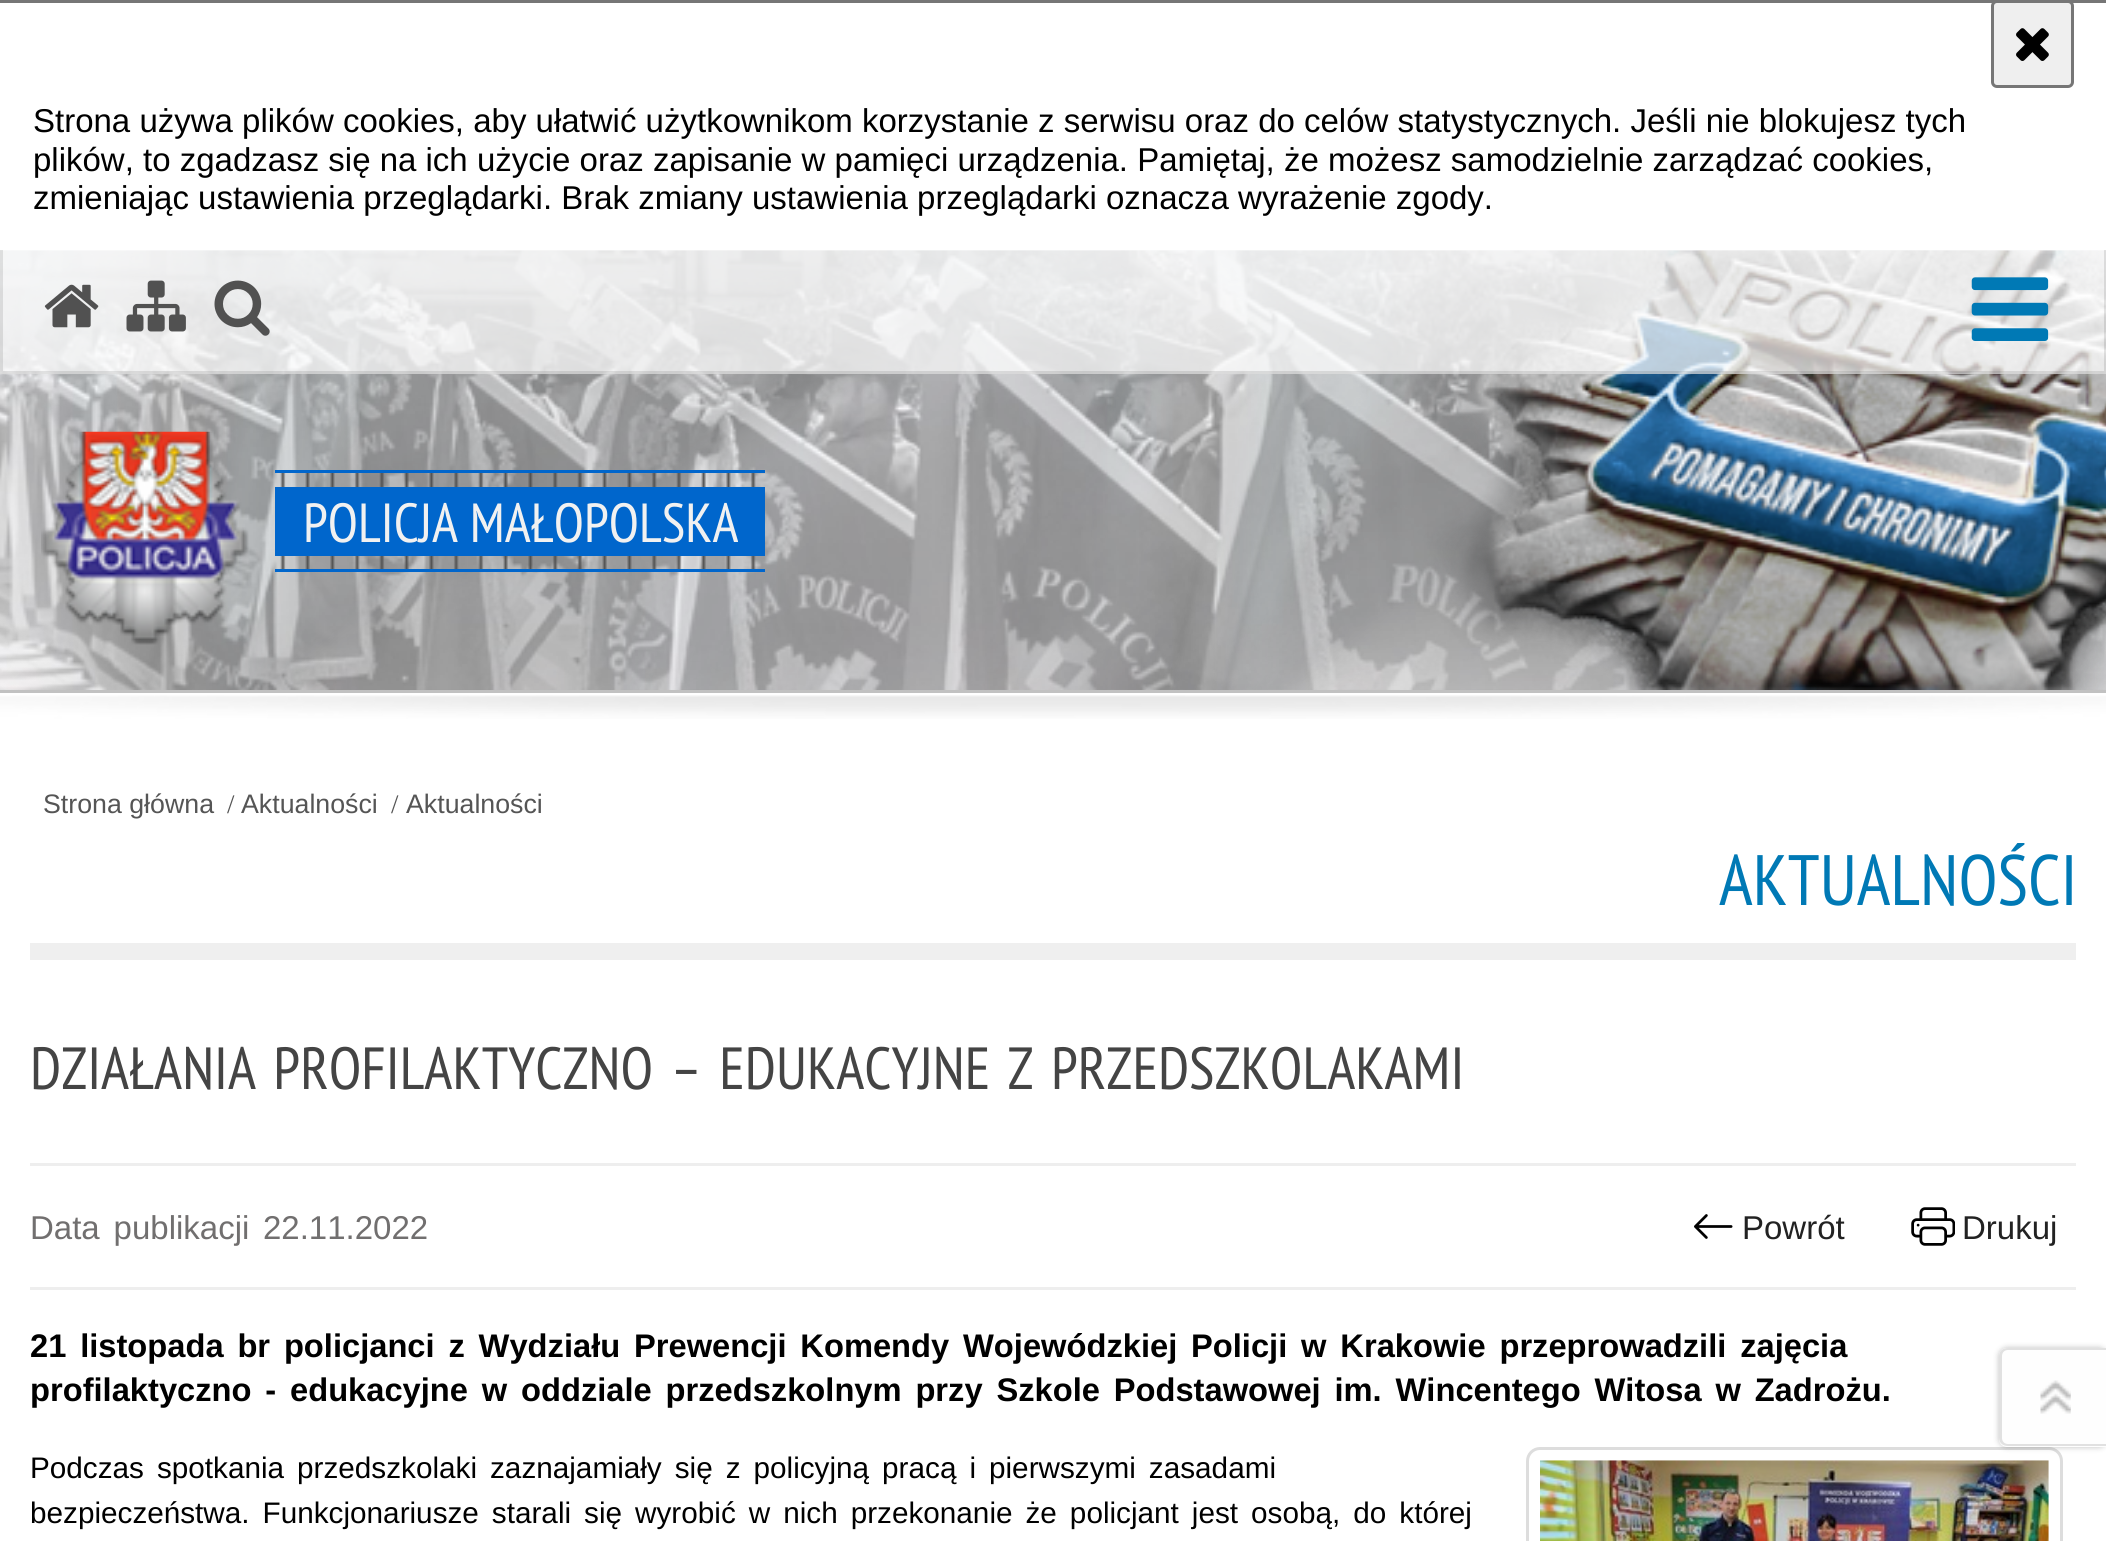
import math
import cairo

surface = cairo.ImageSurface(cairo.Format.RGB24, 2106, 1541)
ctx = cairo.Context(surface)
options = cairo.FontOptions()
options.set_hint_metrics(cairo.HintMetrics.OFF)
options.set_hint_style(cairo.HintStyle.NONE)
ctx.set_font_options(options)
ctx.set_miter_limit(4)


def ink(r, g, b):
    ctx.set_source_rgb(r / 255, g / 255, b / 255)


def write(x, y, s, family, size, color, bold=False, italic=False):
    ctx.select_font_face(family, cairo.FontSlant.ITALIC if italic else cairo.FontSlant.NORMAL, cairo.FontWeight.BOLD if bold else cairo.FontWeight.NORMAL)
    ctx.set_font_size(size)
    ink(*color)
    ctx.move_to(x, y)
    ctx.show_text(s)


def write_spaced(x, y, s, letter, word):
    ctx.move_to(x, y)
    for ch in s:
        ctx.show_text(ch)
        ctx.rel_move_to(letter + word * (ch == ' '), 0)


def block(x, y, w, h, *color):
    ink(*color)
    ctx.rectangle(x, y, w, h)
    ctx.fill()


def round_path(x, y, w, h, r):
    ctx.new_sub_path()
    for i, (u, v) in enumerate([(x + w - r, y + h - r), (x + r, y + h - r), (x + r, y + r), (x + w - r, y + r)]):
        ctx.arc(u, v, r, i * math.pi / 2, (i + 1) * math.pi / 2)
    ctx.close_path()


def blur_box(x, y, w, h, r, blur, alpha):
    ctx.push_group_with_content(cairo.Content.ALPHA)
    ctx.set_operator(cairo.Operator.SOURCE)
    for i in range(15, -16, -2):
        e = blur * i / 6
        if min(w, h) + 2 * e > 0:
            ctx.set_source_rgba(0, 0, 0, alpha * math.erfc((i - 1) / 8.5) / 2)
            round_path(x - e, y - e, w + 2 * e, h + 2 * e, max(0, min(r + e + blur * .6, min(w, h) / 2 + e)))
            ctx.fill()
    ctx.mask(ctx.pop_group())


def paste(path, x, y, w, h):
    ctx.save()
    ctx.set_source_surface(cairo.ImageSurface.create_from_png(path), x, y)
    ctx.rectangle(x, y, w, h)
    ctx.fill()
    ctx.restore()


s1 = dict(family="Liberation Sans", size=33, color=(0, 0, 0))
s2 = dict(family="PT Sans Narrow", size=55, color=(241, 241, 241))
s3 = dict(family="Liberation Sans", size=26.75, color=(85, 85, 85))
s4 = dict(family="Liberation Serif", size=26.75, color=(85, 85, 85))
s5 = dict(family="PT Sans Narrow", size=71.25, color=(0, 121, 181))
s6 = dict(family="Liberation Sans", size=33, color=(113, 111, 111))
s7 = dict(family="Liberation Sans", size=33, color=(34, 34, 34))

ink(255, 255, 255)
ctx.paint()
block(0, 0, 2106, 3, 118, 118, 118)
ink(239, 239, 239)
round_path(1992.5, 1.5, 80, 85, 4.5)
ctx.fill_preserve()
ink(118, 118, 118)
ctx.set_line_width(3)
ctx.stroke()
paste("pic1.png", 2016, 28, 33, 33)
write(33, 132, "Strona używa plików cookies, aby ułatwić użytkownikom korzystanie z serwisu oraz do celów statystycznych. Jeśli nie blokujesz tych", **s1)
write(33, 171, "plików, to zgadzasz się na ich użycie oraz zapisanie w pamięci urządzenia. Pamiętaj, że możesz samodzielnie zarządzać cookies,", **s1)
write(33, 209, "zmieniając ustawienia przeglądarki. Brak zmiany ustawienia przeglądarki oznacza wyrażenie zgody.", **s1)
paste("pic2.png", 0, 250, 2106, 440)
paste("pic3.png", 0, 695, 2106, 24)
paste("pic4.png", 0, 250, 2106, 440)
block(0, 690, 2106, 3, 193, 193, 193)
ctx.set_source_rgba(1, 1, 1, 0.7)
ctx.rectangle(0, 250, 2106, 124)
ctx.fill()
ctx.set_source_rgba(0, 0, 0, 0.1)
ctx.new_path()
ctx.move_to(2106, 250)
ctx.line_to(2106, 374)
ctx.line_to(2104, 371)
ctx.line_to(2104, 250)
ctx.close_path()
ctx.fill()
ctx.new_path()
ctx.move_to(2106, 374)
ctx.line_to(0, 374)
ctx.line_to(3, 371)
ctx.line_to(2104, 371)
ctx.close_path()
ctx.fill()
ctx.new_path()
ctx.move_to(0, 374)
ctx.line_to(0, 250)
ctx.line_to(3, 250)
ctx.line_to(3, 371)
ctx.close_path()
ctx.fill()
paste("pic5.png", 44, 284, 55, 44)
paste("pic6.png", 126, 280, 60, 52)
paste("pic7.png", 214, 280, 56, 56)
paste("pic8.png", 1971, 277, 78, 64)
paste("pic9.png", 280, 473, 476, 96)
block(275, 470, 490, 3, 0, 102, 204)
block(275, 569, 490, 3, 0, 102, 204)
paste("pic10.png", 41, 431, 208, 214)
block(275, 487, 490, 69, 0, 102, 204)
write(303, 542, "POLICJA MAŁOPOLSKA", **s2)
write(43, 813, "Strona główna", **s3)
write(227, 813, "/", **s4)
write(241, 813, "Aktualności", **s3)
write(391, 813, "/", **s4)
write(406, 813, "Aktualności", **s3)
block(30, 943, 2046, 17, 239, 239, 239)
write(1719, 905, "AKTUALNOŚCI", **s5)
ctx.set_font_size(59.4)
ink(68, 68, 68)
write_spaced(30, 1089, "DZIAŁANIA PROFILAKTYCZNO – EDUKACYJNE Z PRZEDSZKOLAKAMI", 0, 4.75)
block(30, 1163, 2046, 3, 238, 238, 238)
block(30, 1287, 2046, 3, 238, 238, 238)
ctx.select_font_face("Liberation Sans")
ctx.set_font_size(33)
ink(113, 111, 111)
write_spaced(30, 1239, "Data publikacji", 0, 4.75)
write(263, 1239, "22.11.2022", **s6)
paste("pic11.png", 1694, 1214, 39, 25)
write(1742, 1239, "Powrót", **s7)
paste("pic12.png", 1911, 1207, 44, 39)
write(1962, 1239, "Drukuj", **s7)
ctx.select_font_face("Liberation Sans", cairo.FontSlant.NORMAL, cairo.FontWeight.BOLD)
ctx.set_font_size(32.67)
ink(0, 0, 0)
write_spaced(30, 1357, "21 listopada br policjanci z Wydziału Prewencji Komendy Wojewódzkiej Policji w Krakowie przeprowadzili zajęcia", 0, 4.75)
write_spaced(30, 1401, "profilaktyczno - edukacyjne w oddziale przedszkolnym przy Szkole Podstawowej im. Wincentego Witosa w Zadrożu.", 0, 4.75)
ctx.select_font_face("Liberation Sans")
ctx.set_font_size(29.7)
write_spaced(30, 1478, "Podczas spotkania przedszkolaki zaznajamiały się z policyjną pracą i pierwszymi zasadami", 0, 4.75)
write_spaced(30, 1523, "bezpieczeństwa. Funkcjonariusze starali się wyrobić w nich przekonanie że policjant jest osobą, do której", 0, 4.75)
round_path(1527.5, 1448.5, 534, 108, 12.5)
ink(221, 221, 221)
ctx.stroke()
paste("pic13.png", 1540, 1460, 509, 81)
ink(0, 0, 0)
blur_box(1999, 1348, 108, 99, 8, 3, 0.25)
ink(254, 254, 254)
ctx.new_path()
ctx.move_to(2007, 1348)
ctx.line_to(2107, 1348)
ctx.line_to(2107, 1447)
ctx.line_to(2007, 1447)
ctx.curve_to(2002.5, 1447, 1999, 1443.5, 1999, 1439)
ctx.line_to(1999, 1356)
ctx.curve_to(1999, 1351.5, 2002.5, 1348, 2007, 1348)
ctx.close_path()
ctx.fill()
ink(225, 225, 225)
ctx.set_fill_rule(cairo.FillRule.EVEN_ODD)
ctx.new_path()
ctx.move_to(2008, 1348)
ctx.line_to(2106, 1348)
ctx.line_to(2106, 1446)
ctx.line_to(2008, 1446)
ctx.curve_to(2003, 1446, 1999, 1443, 1999, 1438)
ctx.line_to(1999, 1356)
ctx.curve_to(1999, 1351, 2003, 1348, 2008, 1348)
ctx.close_path()
ctx.move_to(2008, 1350)
ctx.line_to(2106, 1350)
ctx.line_to(2106, 1444)
ctx.line_to(2008, 1444)
ctx.curve_to(2004, 1444, 2002, 1441, 2002, 1438)
ctx.line_to(2002, 1356)
ctx.curve_to(2002, 1353, 2004, 1350, 2008, 1350)
ctx.close_path()
ctx.fill()
paste("pic14.png", 2040, 1380, 31, 34)
surface.write_to_png("screenshot.png")
